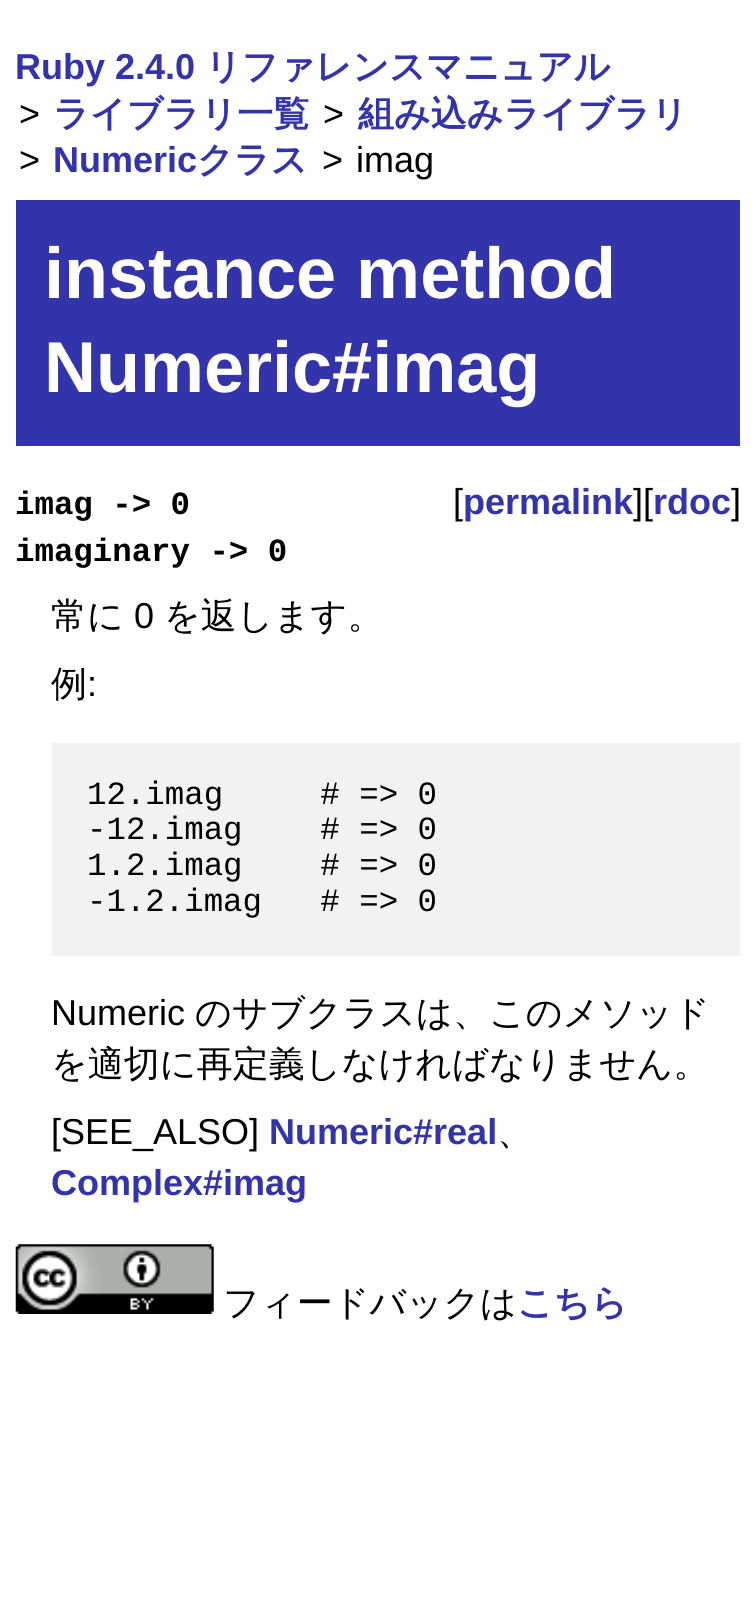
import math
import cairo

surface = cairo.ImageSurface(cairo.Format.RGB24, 756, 1623)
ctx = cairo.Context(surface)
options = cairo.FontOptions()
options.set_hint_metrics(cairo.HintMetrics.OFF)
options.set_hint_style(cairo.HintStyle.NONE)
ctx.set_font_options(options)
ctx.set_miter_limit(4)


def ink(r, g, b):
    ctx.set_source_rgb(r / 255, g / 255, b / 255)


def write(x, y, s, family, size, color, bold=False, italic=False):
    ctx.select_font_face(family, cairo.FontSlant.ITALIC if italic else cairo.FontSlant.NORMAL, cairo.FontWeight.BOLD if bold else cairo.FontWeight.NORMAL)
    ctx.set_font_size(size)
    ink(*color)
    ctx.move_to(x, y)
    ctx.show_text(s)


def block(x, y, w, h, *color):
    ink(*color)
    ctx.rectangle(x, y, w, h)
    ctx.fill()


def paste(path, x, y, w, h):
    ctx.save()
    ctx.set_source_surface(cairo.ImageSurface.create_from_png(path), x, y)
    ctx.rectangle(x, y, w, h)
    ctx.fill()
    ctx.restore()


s1 = dict(family="Liberation Sans", size=36, color=(51, 51, 170), bold=True)
s2 = dict(family="WenQuanYi Zen Hei", size=36, color=(51, 51, 170), bold=True)
s3 = dict(family="Liberation Sans", size=36, color=(0, 0, 0))
s4 = dict(family="Liberation Sans", size=72, color=(255, 255, 255), bold=True)
s5 = dict(family="Liberation Mono", size=32.4, color=(0, 0, 0), bold=True)
s6 = dict(family="WenQuanYi Zen Hei Medium", size=36, color=(0, 0, 0))
s7 = dict(family="Liberation Mono", size=32.4, color=(0, 0, 0))

ink(255, 255, 255)
ctx.paint()
write(15, 79, "Ruby 2.4.0", **s1)
write(205, 79, "リファレンスマニュアル", **s2)
write(19, 126, ">", **s3)
write(53, 126, "ライブラリ一覧", **s2)
write(323, 126, ">", **s3)
write(358, 126, "組み込みライブラリ", **s2)
write(19, 172, ">", **s3)
write(53, 172, "Numeric", **s1)
write(197, 172, "クラス", **s2)
write(322, 172, ">", **s3)
write(356, 172, "imag", **s3)
block(16, 200, 724, 246, 51, 51, 170)
write(44, 298, "instance method", **s4)
write(44, 392, "Numeric#imag", **s4)
write(15, 514, "imag -> 0", **s5)
write(453, 514, "[", **s3)
write(463, 514, "permalink", **s1)
write(633, 514, "][", **s3)
write(653, 514, "rdoc", **s1)
write(731, 514, "]", **s3)
write(15, 561, "imaginary -> 0", **s5)
write(51, 628, "常に", **s6)
write(134, 628, "0", **s3)
write(164, 628, "を返します。", **s6)
write(51, 696, "例", **s6)
write(87, 696, ":", **s3)
block(52, 743, 688, 213, 242, 242, 242)
write(87, 804, "12.imag     # => 0", **s7)
write(87, 839, "-12.imag    # => 0", **s7)
write(87, 875, "1.2.imag    # => 0", **s7)
write(87, 911, "-1.2.imag   # => 0", **s7)
write(51, 1025, "Numeric", **s3)
write(195, 1025, "のサブクラスは、このメソッド", **s6)
write(51, 1076, "を適切に再定義しなければなりません。", **s6)
write(51, 1144, "[SEE_ALSO]", **s3)
write(269, 1144, "Numeric#real", **s1)
write(497, 1144, "、", **s6)
write(51, 1195, "Complex#imag", **s1)
paste("pic1.png", 15, 1244, 199, 70)
write(223, 1315, "フィードバックは", **s6)
write(517, 1315, "こちら", **s2)
surface.write_to_png("screenshot.png")
